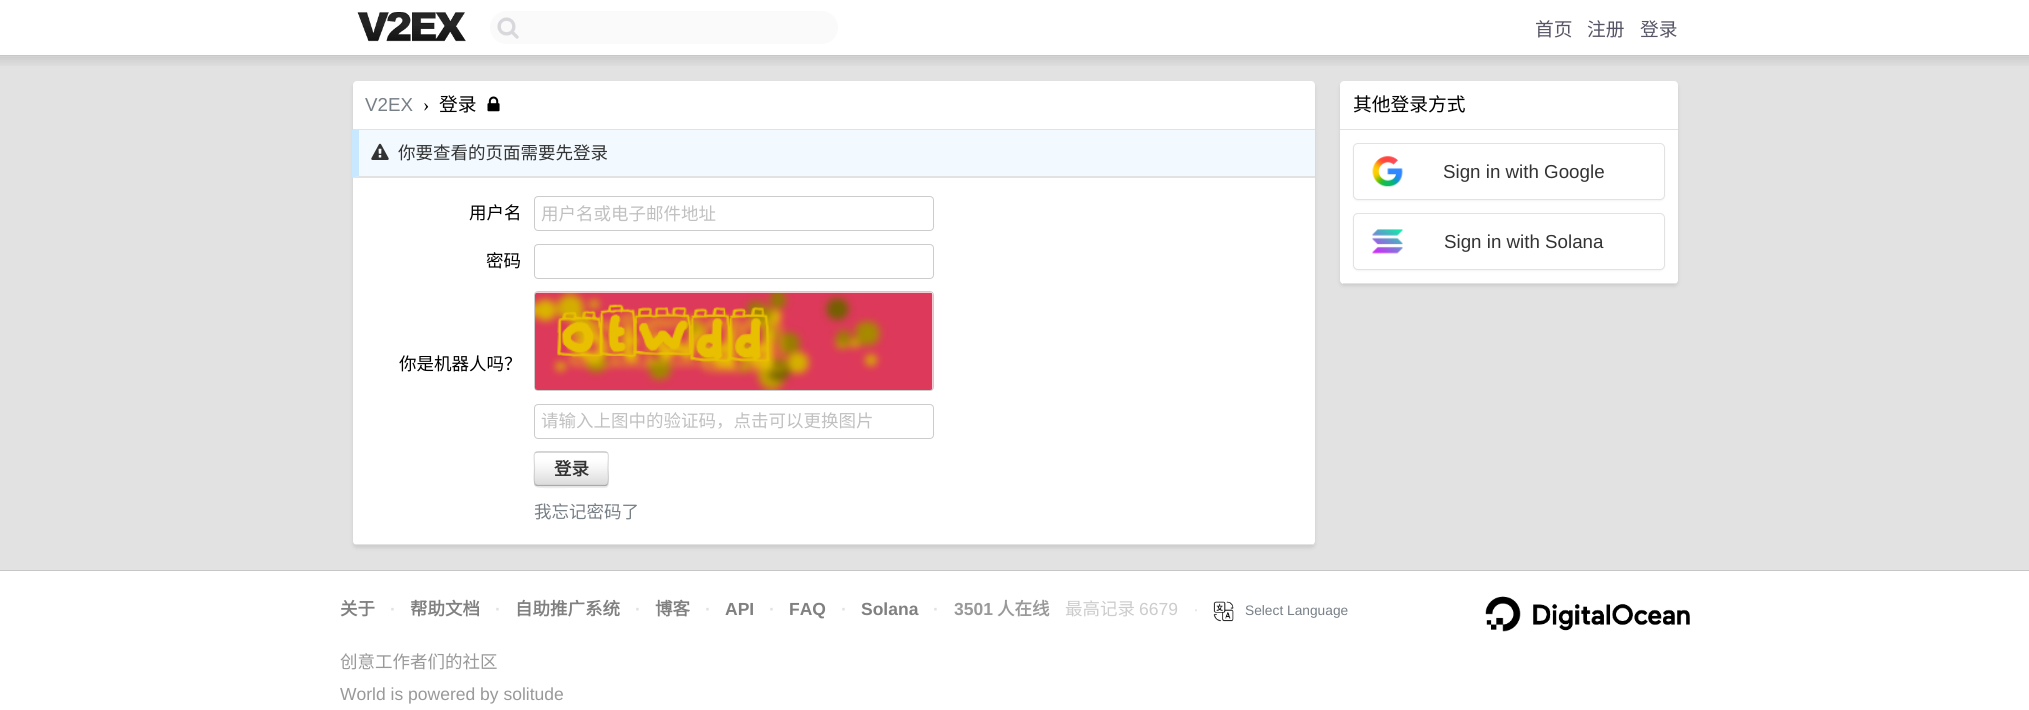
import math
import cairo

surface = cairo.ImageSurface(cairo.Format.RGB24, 2029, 710)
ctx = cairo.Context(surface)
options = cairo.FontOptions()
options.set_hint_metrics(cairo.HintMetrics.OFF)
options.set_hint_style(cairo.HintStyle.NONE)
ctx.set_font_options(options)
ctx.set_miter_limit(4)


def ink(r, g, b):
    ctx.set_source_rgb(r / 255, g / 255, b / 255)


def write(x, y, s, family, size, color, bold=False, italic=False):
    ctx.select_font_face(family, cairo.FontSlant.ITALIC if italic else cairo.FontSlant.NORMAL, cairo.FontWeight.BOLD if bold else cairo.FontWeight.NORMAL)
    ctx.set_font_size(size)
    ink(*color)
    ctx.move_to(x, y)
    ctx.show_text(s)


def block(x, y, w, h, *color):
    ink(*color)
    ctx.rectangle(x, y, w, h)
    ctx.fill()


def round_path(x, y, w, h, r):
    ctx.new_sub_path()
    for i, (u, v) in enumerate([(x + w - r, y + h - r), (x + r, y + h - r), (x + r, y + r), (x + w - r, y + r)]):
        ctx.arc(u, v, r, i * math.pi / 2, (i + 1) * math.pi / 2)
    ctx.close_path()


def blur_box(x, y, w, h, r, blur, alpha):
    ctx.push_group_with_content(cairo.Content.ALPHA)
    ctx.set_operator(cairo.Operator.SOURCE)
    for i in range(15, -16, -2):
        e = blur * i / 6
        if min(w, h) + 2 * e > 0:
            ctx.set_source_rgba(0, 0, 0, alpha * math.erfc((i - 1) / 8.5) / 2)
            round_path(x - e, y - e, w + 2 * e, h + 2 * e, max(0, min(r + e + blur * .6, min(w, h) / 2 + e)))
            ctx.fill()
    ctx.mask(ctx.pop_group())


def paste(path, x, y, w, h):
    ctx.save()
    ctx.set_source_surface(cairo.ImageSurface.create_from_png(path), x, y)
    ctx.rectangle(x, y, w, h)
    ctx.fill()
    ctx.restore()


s1 = dict(family="Noto Sans CJK SC", size=18.75, color=(85, 85, 102))
s2 = dict(family="Liberation Sans", size=18.75, color=(119, 128, 135))
s3 = dict(family="Liberation Serif", size=18.75, color=(0, 0, 0))
s4 = dict(family="Noto Sans CJK SC", size=18.75, color=(0, 0, 0))
s5 = dict(family="Noto Sans CJK SC", size=17.5, color=(51, 51, 51))
s6 = dict(family="Noto Sans CJK SC", size=17.5, color=(0, 0, 0))
s7 = dict(family="Noto Sans CJK SC", size=17.5, color=(192, 192, 192))
s8 = dict(family="Noto Sans CJK SC", size=17.5, color=(51, 51, 51), bold=True)
s9 = dict(family="Noto Sans CJK SC", size=17.5, color=(119, 128, 135))
s10 = dict(family="Liberation Sans", size=18.75, color=(51, 51, 51))
s11 = dict(family="Noto Sans CJK SC", size=17.5, color=(128, 128, 128), bold=True)
s12 = dict(family="Liberation Sans", size=17.5, color=(226, 226, 226), bold=True)
s13 = dict(family="Liberation Sans", size=17.5, color=(128, 128, 128), bold=True)
s14 = dict(family="Liberation Sans", size=17.5, color=(153, 153, 153), bold=True)
s15 = dict(family="Noto Sans CJK SC", size=17.5, color=(153, 153, 153), bold=True)
s16 = dict(family="Noto Sans CJK SC", size=17.5, color=(204, 204, 204))
s17 = dict(family="Liberation Sans", size=17.5, color=(204, 204, 204))
s18 = dict(family="Liberation Sans", size=17.5, color=(226, 226, 226))
s19 = dict(family="Liberation Sans", size=13.75, color=(119, 128, 135))
s20 = dict(family="Noto Sans CJK SC", size=17.5, color=(153, 153, 153))
s21 = dict(family="Liberation Sans", size=17.5, color=(153, 153, 153))

ink(255, 255, 255)
ctx.paint()
block(0, 55, 2029, 1, 199, 199, 199)
paste("pic1.png", 357, 12, 109, 30)
ink(250, 250, 250)
round_path(490, 11, 348, 33, 16.5)
ctx.fill()
paste("pic2.png", 497, 17, 22, 22)
write(1535, 36, "首页", **s1)
write(1587, 36, "注册", **s1)
write(1640, 36, "登录", **s1)
block(0, 56, 2029, 514, 226, 226, 226)
paste("pic3.png", 0, 56, 2029, 10)
ink(0, 0, 0)
blur_box(353, 84, 962, 464, 4, 2, 0.1)
ink(255, 255, 255)
round_path(353, 81, 962, 464, 4)
ctx.fill()
block(355, 544, 959, 1, 226, 226, 226)
block(353, 129, 962, 1, 226, 226, 226)
write(365, 111, "V2EX", **s2)
write(423, 111, "›", **s3)
write(439, 111, "登录", **s4)
paste("pic4.png", 487, 96, 13, 16)
block(353, 130, 962, 48, 243, 250, 255)
ink(226, 226, 226)
ctx.new_path()
ctx.move_to(1315, 178)
ctx.line_to(352, 178)
ctx.line_to(359, 176)
ctx.line_to(1315, 176)
ctx.close_path()
ctx.fill()
ink(199, 232, 255)
ctx.new_path()
ctx.move_to(352, 178)
ctx.line_to(352, 130)
ctx.line_to(359, 130)
ctx.line_to(359, 176)
ctx.close_path()
ctx.fill()
paste("pic5.png", 371, 143, 18, 17)
write(398, 159, "你要查看的页面需要先登录", **s5)
write(469, 219, "用户名", **s6)
round_path(534.5, 196.5, 399, 34, 3.5)
ink(204, 204, 204)
ctx.set_line_width(1)
ctx.stroke()
write(541, 220, "用户名或电子邮件地址", **s7)
write(486, 267, "密码", **s6)
round_path(534.5, 244.5, 399, 34, 3.5)
ink(204, 204, 204)
ctx.stroke()
write(399, 370, "你是机器人吗？", **s6)
round_path(534.5, 291.5, 399, 99, 3.5)
ink(204, 204, 204)
ctx.stroke()
paste("pic6.png", 535, 292, 398, 98)
round_path(534.5, 404.5, 399, 34, 3.5)
ctx.stroke()
write(541, 427, "请输入上图中的验证码，点击可以更换图片", **s7)
ink(236, 236, 237)
ctx.new_path()
ctx.move_to(534, 484)
ctx.curve_to(534, 485, 535, 487, 536, 487)
ctx.curve_to(538, 489, 567, 488, 572, 488)
ctx.line_to(594, 488)
ctx.curve_to(610, 488, 609, 490, 609, 475)
ctx.line_to(609, 456)
ctx.line_to(609, 482)
ctx.curve_to(609, 485, 607, 486, 605, 486)
ctx.line_to(538, 486)
ctx.curve_to(536, 486, 535, 485, 534, 484)
ctx.close_path()
ctx.fill()
ink(255, 255, 255)
round_path(534, 451, 75, 35, 4)
ctx.fill()
paste("pic7.png", 534, 451, 75, 35)
ctx.new_path()
ctx.move_to(607, 484.5)
ctx.line_to(605.5, 485.5)
ctx.line_to(537, 485.5)
ctx.line_to(535.5, 484.5)
ink(170, 170, 173)
ctx.set_line_width(1.2)
ctx.stroke()
ctx.new_path()
ctx.move_to(535.5, 484.5)
ctx.curve_to(533, 482.5, 534.5, 471.5, 534.5, 469)
ctx.curve_to(534.5, 450, 530.5, 452, 549, 452)
ctx.line_to(594, 452)
ctx.curve_to(612, 452, 608, 450, 608, 469)
ctx.curve_to(608, 471.5, 609.5, 482.5, 607, 484.5)
ctx.set_source_rgba(0.314, 0.314, 0.353, 0.2)
ctx.stroke()
write(554, 475, "登录", **s8)
write(534, 518, "我忘记密码了", **s9)
ink(0, 0, 0)
blur_box(1340, 84, 338, 202, 4, 2, 0.1)
ink(255, 255, 255)
round_path(1340, 81, 338, 203, 4)
ctx.fill()
block(1343, 283, 333, 1, 226, 226, 226)
block(1340, 129, 338, 1, 226, 226, 226)
write(1353, 111, "其他登录方式", **s4)
ink(0, 0, 0)
blur_box(1353, 144, 312, 57, 5, 1, 0.05)
ink(255, 255, 255)
round_path(1353.5, 143.5, 311, 56, 4.5)
ctx.fill_preserve()
ink(226, 226, 226)
ctx.set_line_width(1)
ctx.stroke()
paste("pic8.png", 1372, 156, 31, 31)
write(1443, 178, "Sign in with Google", **s10)
ink(0, 0, 0)
blur_box(1353, 214, 312, 57, 5, 1, 0.05)
ink(255, 255, 255)
round_path(1353.5, 213.5, 311, 56, 4.5)
ctx.fill_preserve()
ink(226, 226, 226)
ctx.stroke()
paste("pic9.png", 1372, 229, 31, 25)
write(1444, 248, "Sign in with Solana", **s10)
block(0, 570, 2029, 1, 199, 199, 199)
write(340, 615, "关于", **s11)
write(390, 615, "·", **s12)
write(410, 615, "帮助文档", **s11)
write(495, 615, "·", **s12)
write(515, 615, "自助推广系统", **s11)
write(635, 615, "·", **s12)
write(655, 615, "博客", **s11)
write(705, 615, "·", **s12)
write(725, 615, "API", **s13)
write(769, 615, "·", **s12)
write(789, 615, "FAQ", **s13)
write(841, 615, "·", **s12)
write(861, 615, "Solana", **s13)
write(933, 615, "·", **s12)
write(954, 615, "3501", **s14)
write(997, 615, "人在线", **s15)
write(1065, 615, "最高记录", **s16)
write(1139, 615, "6679", **s17)
write(1193, 615, "·", **s18)
paste("pic10.png", 1213, 601, 21, 21)
write(1245, 615, "Select Language", **s19)
paste("pic11.png", 1485, 596, 205, 36)
write(340, 668, "创意工作者们的社区", **s20)
write(340, 700, "World is powered by solitude", **s21)
surface.write_to_png("screenshot.png")
